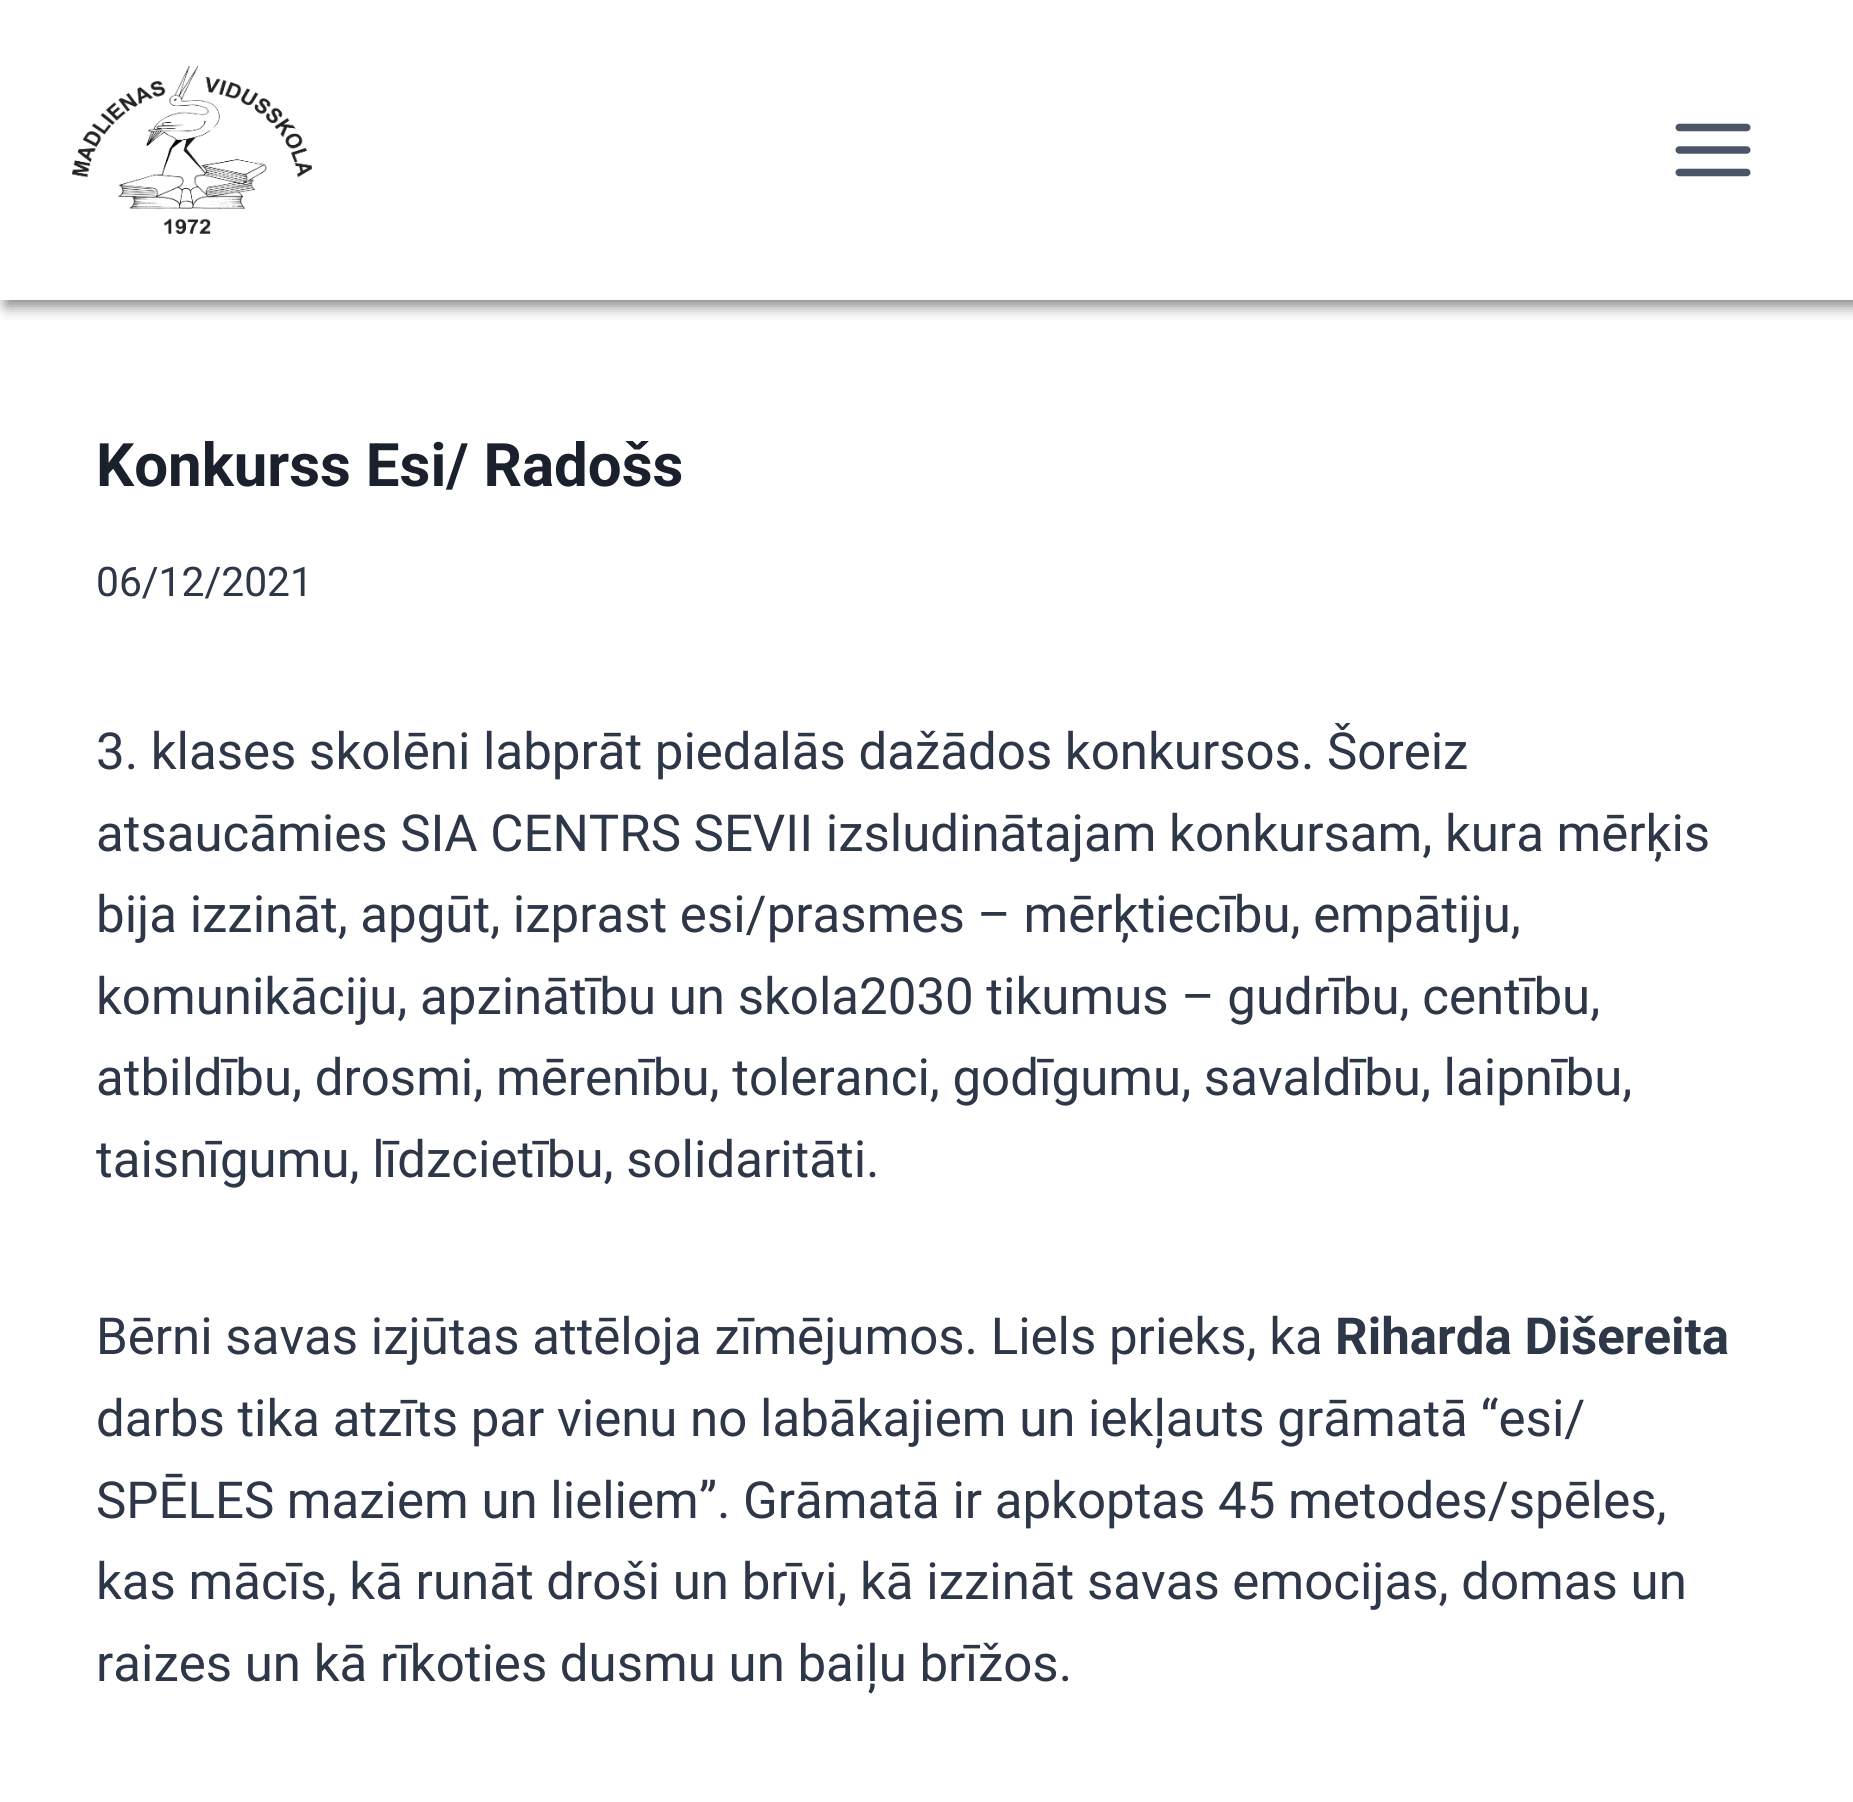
import math
import cairo

surface = cairo.ImageSurface(cairo.Format.RGB24, 1853, 1802)
ctx = cairo.Context(surface)
options = cairo.FontOptions()
options.set_hint_metrics(cairo.HintMetrics.OFF)
options.set_hint_style(cairo.HintStyle.NONE)
ctx.set_font_options(options)
ctx.set_miter_limit(4)


def ink(r, g, b):
    ctx.set_source_rgb(r / 255, g / 255, b / 255)


def write(x, y, s, family, size, color, bold=False, italic=False):
    ctx.select_font_face(family, cairo.FontSlant.ITALIC if italic else cairo.FontSlant.NORMAL, cairo.FontWeight.BOLD if bold else cairo.FontWeight.NORMAL)
    ctx.set_font_size(size)
    ink(*color)
    ctx.move_to(x, y)
    ctx.show_text(s)


def round_path(x, y, w, h, r):
    ctx.new_sub_path()
    for i, (u, v) in enumerate([(x + w - r, y + h - r), (x + r, y + h - r), (x + r, y + r), (x + w - r, y + r)]):
        ctx.arc(u, v, r, i * math.pi / 2, (i + 1) * math.pi / 2)
    ctx.close_path()


def blur_box(x, y, w, h, r, blur, alpha):
    ctx.push_group_with_content(cairo.Content.ALPHA)
    ctx.set_operator(cairo.Operator.SOURCE)
    for i in range(15, -16, -2):
        e = blur * i / 6
        if min(w, h) + 2 * e > 0:
            ctx.set_source_rgba(0, 0, 0, alpha * math.erfc((i - 1) / 8.5) / 2)
            round_path(x - e, y - e, w + 2 * e, h + 2 * e, max(0, min(r + e + blur * .6, min(w, h) / 2 + e)))
            ctx.fill()
    ctx.mask(ctx.pop_group())


def paste(path, x, y, w, h):
    ctx.save()
    ctx.set_source_surface(cairo.ImageSurface.create_from_png(path), x, y)
    ctx.rectangle(x, y, w, h)
    ctx.fill()
    ctx.restore()


s1 = dict(family="Roboto", size=60, color=(26, 32, 44), bold=True)
s2 = dict(family="Roboto", size=40.75, color=(45, 55, 72))
s3 = dict(family="Roboto", size=51, color=(45, 55, 72))
s4 = dict(family="Roboto", size=51, color=(45, 55, 72), bold=True)

ink(255, 255, 255)
ctx.paint()
ctx.save()
ctx.rectangle(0, 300, 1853, 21)
ctx.clip()
ink(128, 128, 128)
blur_box(6, 6, 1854, 300, 0, 7.5, 1)
ctx.restore()
paste("pic1.png", 72, 66, 240, 168)
paste("pic2.png", 1675, 123, 76, 54)
write(96, 486, "Konkurss Esi/ Radošs", **s1)
write(96, 596, "06/12/2021", **s2)
write(96, 769, "3. klases skolēni labprāt piedalās dažādos konkursos. Šoreiz", **s3)
write(96, 851, "atsaucāmies SIA CENTRS SEVII izsludinātajam konkursam, kura mērķis", **s3)
write(96, 932, "bija izzināt, apgūt, izprast esi/prasmes – mērķtiecību, empātiju,", **s3)
write(96, 1014, "komunikāciju, apzinātību un skola2030 tikumus – gudrību, centību,", **s3)
write(96, 1095, "atbildību, drosmi, mērenību, toleranci, godīgumu, savaldību, laipnību,", **s3)
write(96, 1177, "taisnīgumu, līdzcietību, solidaritāti.", **s3)
write(96, 1354, "Bērni savas izjūtas attēloja zīmējumos. Liels prieks, ka", **s3)
write(1335, 1354, "Riharda Dišereita", **s4)
write(96, 1436, "darbs tika atzīts par vienu no labākajiem un iekļauts grāmatā “esi/", **s3)
write(96, 1518, "SPĒLES maziem un lieliem”. Grāmatā ir apkoptas 45 metodes/spēles,", **s3)
write(96, 1599, "kas mācīs, kā runāt droši un brīvi, kā izzināt savas emocijas, domas un", **s3)
write(96, 1681, "raizes un kā rīkoties dusmu un baiļu brīžos.", **s3)
surface.write_to_png("screenshot.png")
